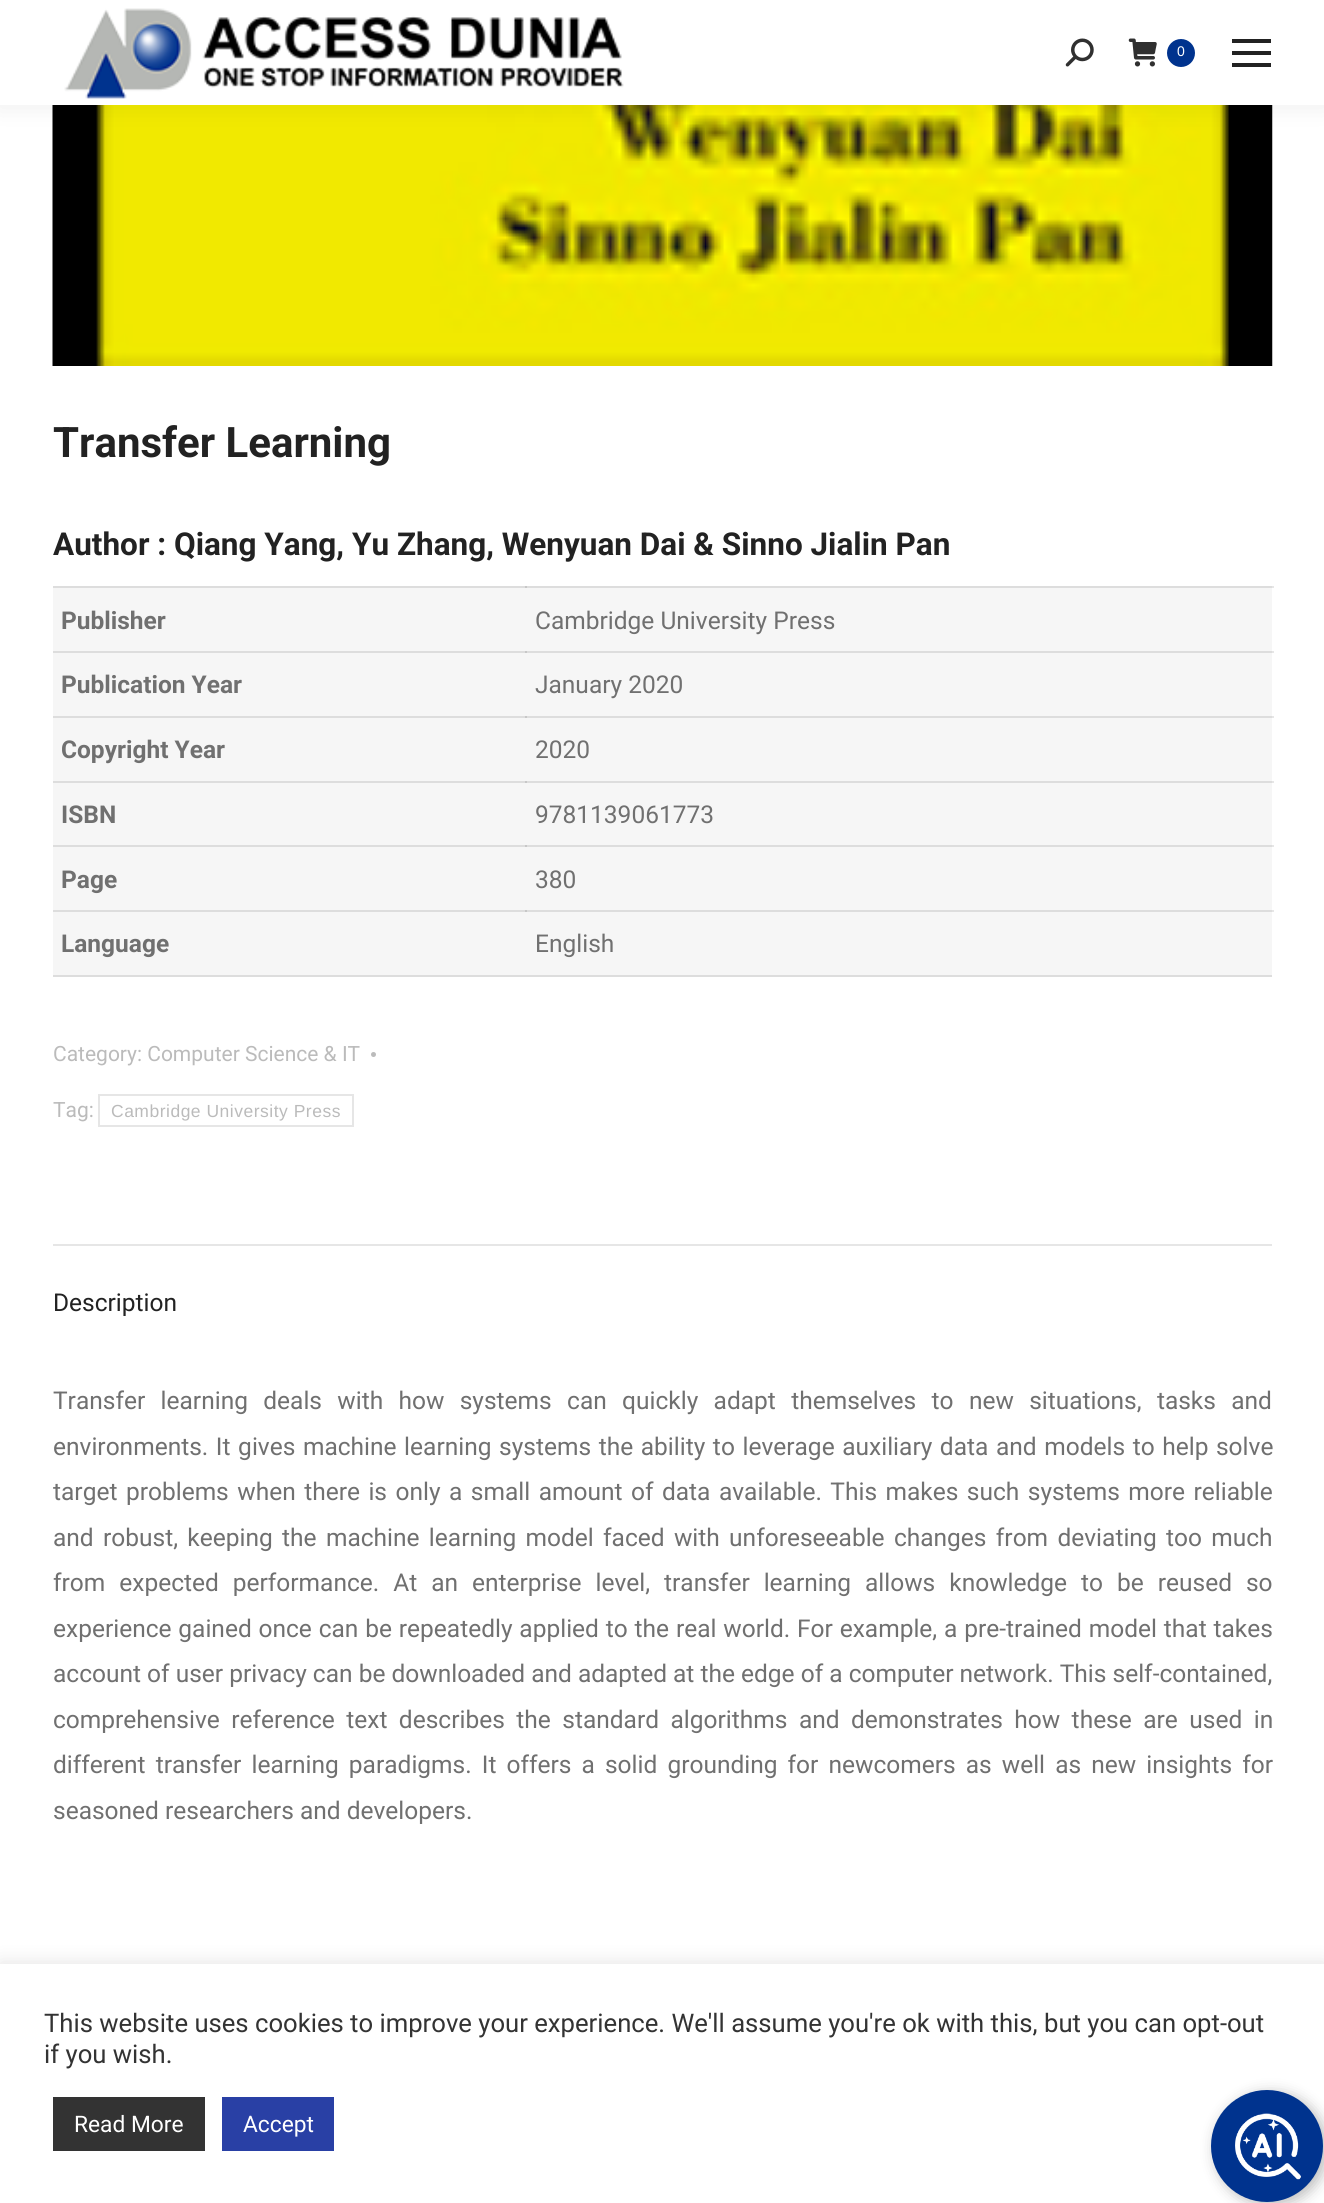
import math
import cairo

surface = cairo.ImageSurface(cairo.Format.RGB24, 1324, 2203)
ctx = cairo.Context(surface)
options = cairo.FontOptions()
options.set_hint_metrics(cairo.HintMetrics.OFF)
options.set_hint_style(cairo.HintStyle.NONE)
ctx.set_font_options(options)
ctx.set_miter_limit(4)


def ink(r, g, b):
    ctx.set_source_rgb(r / 255, g / 255, b / 255)


def write(x, y, s, family, size, color, bold=False, italic=False):
    ctx.select_font_face(family, cairo.FontSlant.ITALIC if italic else cairo.FontSlant.NORMAL, cairo.FontWeight.BOLD if bold else cairo.FontWeight.NORMAL)
    ctx.set_font_size(size)
    ink(*color)
    ctx.move_to(x, y)
    ctx.show_text(s)


def write_spaced(x, y, s, letter, word):
    ctx.move_to(x, y)
    for ch in s:
        ctx.show_text(ch)
        ctx.rel_move_to(letter + word * (ch == ' '), 0)


def block(x, y, w, h, *color):
    ink(*color)
    ctx.rectangle(x, y, w, h)
    ctx.fill()


def round_path(x, y, w, h, r):
    ctx.new_sub_path()
    for i, (u, v) in enumerate([(x + w - r, y + h - r), (x + r, y + h - r), (x + r, y + r), (x + w - r, y + r)]):
        ctx.arc(u, v, r, i * math.pi / 2, (i + 1) * math.pi / 2)
    ctx.close_path()


def blur_box(x, y, w, h, r, blur, alpha):
    ctx.push_group_with_content(cairo.Content.ALPHA)
    ctx.set_operator(cairo.Operator.SOURCE)
    for i in range(15, -16, -2):
        e = blur * i / 6
        if min(w, h) + 2 * e > 0:
            ctx.set_source_rgba(0, 0, 0, alpha * math.erfc((i - 1) / 8.5) / 2)
            round_path(x - e, y - e, w + 2 * e, h + 2 * e, max(0, min(r + e + blur * .6, min(w, h) / 2 + e)))
            ctx.fill()
    ctx.mask(ctx.pop_group())


def paste(path, x, y, w, h):
    ctx.save()
    ctx.set_source_surface(cairo.ImageSurface.create_from_png(path), x, y)
    ctx.rectangle(x, y, w, h)
    ctx.fill()
    ctx.restore()


s1 = dict(family="Liberation Sans", size=14, color=(255, 255, 255))
s2 = dict(family="Roboto", size=42, color=(34, 34, 34), bold=True)
s3 = dict(family="Roboto", size=31.5, color=(34, 34, 34), bold=True)
s4 = dict(family="Roboto", size=24.5, color=(112, 112, 112), bold=True)
s5 = dict(family="Roboto", size=24.5, color=(112, 112, 112))
s6 = dict(family="Roboto", size=21, color=(187, 187, 187))
s7 = dict(family="Roboto", size=24.5, color=(34, 34, 34))
s8 = dict(family="Roboto", size=25.65, color=(51, 51, 51))
s9 = dict(family="Roboto", size=22.75, color=(255, 255, 255))

ink(255, 255, 255)
ctx.paint()
block(1272, 586, 2, 2, 230, 230, 230)
block(1272, 651, 2, 2, 230, 230, 230)
block(1272, 716, 2, 2, 230, 230, 230)
block(1272, 781, 2, 2, 230, 230, 230)
block(1272, 845, 2, 2, 230, 230, 230)
block(1272, 910, 2, 2, 230, 230, 230)
paste("pic4.png", 52, 105, 1221, 261)
ink(0, 0, 0)
blur_box(-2, -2, 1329, 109, 0, 13, 0.07)
block(0, 0, 1324, 105, 255, 255, 255)
paste("pic1.png", 64, 8, 560, 91)
paste("pic2.png", 1065, 38, 29, 29)
paste("pic3.png", 1128, 38, 29, 29)
ink(0, 51, 142)
ctx.arc(1181, 53, 14, 0, 2 * math.pi)
ctx.fill()
write(1177, 56, "0", **s1)
block(1232, 39, 39, 4, 34, 34, 34)
block(1232, 51, 39, 4, 34, 34, 34)
block(1232, 63, 39, 4, 34, 34, 34)
write(53, 457, "Transfer Learning", **s2)
write(53, 555, "Author : Qiang Yang, Yu Zhang, Wenyuan Dai & Sinno Jialin Pan", **s3)
block(53, 588, 1219, 387, 246, 246, 246)
block(53, 586, 1219, 2, 221, 221, 221)
block(525, 586, 2, 2, 199, 199, 199)
block(53, 651, 1219, 2, 221, 221, 221)
block(525, 651, 2, 2, 199, 199, 199)
block(53, 716, 1219, 2, 221, 221, 221)
block(525, 716, 2, 2, 199, 199, 199)
block(53, 781, 1219, 2, 221, 221, 221)
block(525, 781, 2, 2, 199, 199, 199)
block(53, 845, 1219, 2, 221, 221, 221)
block(525, 845, 2, 2, 199, 199, 199)
block(53, 910, 1219, 2, 221, 221, 221)
block(525, 910, 2, 2, 199, 199, 199)
block(53, 975, 1219, 2, 221, 221, 221)
write(61, 629, "Publisher", **s4)
write(535, 629, "Cambridge University Press", **s5)
write(61, 693, "Publication Year", **s4)
write(535, 693, "January 2020", **s5)
write(61, 758, "Copyright Year", **s4)
write(535, 758, "2020", **s5)
write(61, 823, "ISBN", **s4)
write(535, 823, "9781139061773", **s5)
write(61, 888, "Page", **s4)
write(535, 888, "380", **s5)
write(61, 952, "Language", **s4)
write(535, 952, "English", **s5)
write(53, 1061, "Category: Computer Science & IT", **s6)
ctx.new_path()
ctx.arc(373.5, 1054.5, 2.5, 0, 2 * math.pi)
ctx.fill()
write(53, 1117, "Tag:", **s6)
ctx.rectangle(99, 1095, 254, 31)
ink(230, 230, 230)
ctx.stroke()
ctx.select_font_face("Liberation Sans")
ctx.set_font_size(17.5)
ink(187, 187, 187)
write_spaced(111, 1117, "Cambridge University Press", 0.5, 0)
block(53, 1244, 1219, 2, 230, 230, 230)
write(53, 1311, "Description", **s7)
ink(112, 112, 112)
write_spaced(53, 1409, "Transfer learning deals with how systems can quickly adapt themselves to new situations, tasks and", 0, 9.25)
write_spaced(53, 1455, "environments. It gives machine learning systems the ability to leverage auxiliary data and models to help solve", 0, 1.5)
write_spaced(53, 1500, "target problems when there is only a small amount of data available. This makes such systems more reliable", 0, 2.4)
write_spaced(53, 1546, "and robust, keeping the machine learning model faced with unforeseeable changes from deviating too much", 0, 3.25)
write_spaced(53, 1591, "from expected performance. At an enterprise level, transfer learning allows knowledge to be reused so", 0, 7.9)
write_spaced(53, 1637, "experience gained once can be repeatedly applied to the real world. For example, a pre-trained model that takes", 0, 0.75)
write(53, 1682, "account of user privacy can be downloaded and adapted at the edge of a computer network. This self-contained,", **s5)
write_spaced(53, 1728, "comprehensive reference text describes the standard algorithms and demonstrates how these are used in", 0, 5.4)
write_spaced(53, 1773, "different transfer learning paradigms. It offers a solid grounding for newcomers as well as new insights for", 0, 4)
write(53, 1819, "seasoned researchers and developers.", **s5)
ink(172, 171, 171)
blur_box(0, 1962, 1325, 240, 0, 9, 0.3)
block(0, 1964, 1324, 239, 255, 255, 255)
write(44, 2032, "This website uses cookies to improve your experience. We'll assume you're ok with this, but you can opt-out", **s8)
write(44, 2063, "if you wish.", **s8)
block(53, 2097, 152, 54, 51, 51, 51)
write(74, 2132, "Read More", **s9)
block(222, 2097, 112, 54, 41, 64, 165)
write(243, 2132, "Accept", **s9)
ink(0, 0, 0)
blur_box(1215, 2093, 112, 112, 56, 7, 0.27)
ink(0, 51, 142)
ctx.arc(1267, 2146, 56, 0, 2 * math.pi)
ctx.fill()
paste("pic5.png", 1235, 2113, 66, 67)
surface.write_to_png("screenshot.png")
